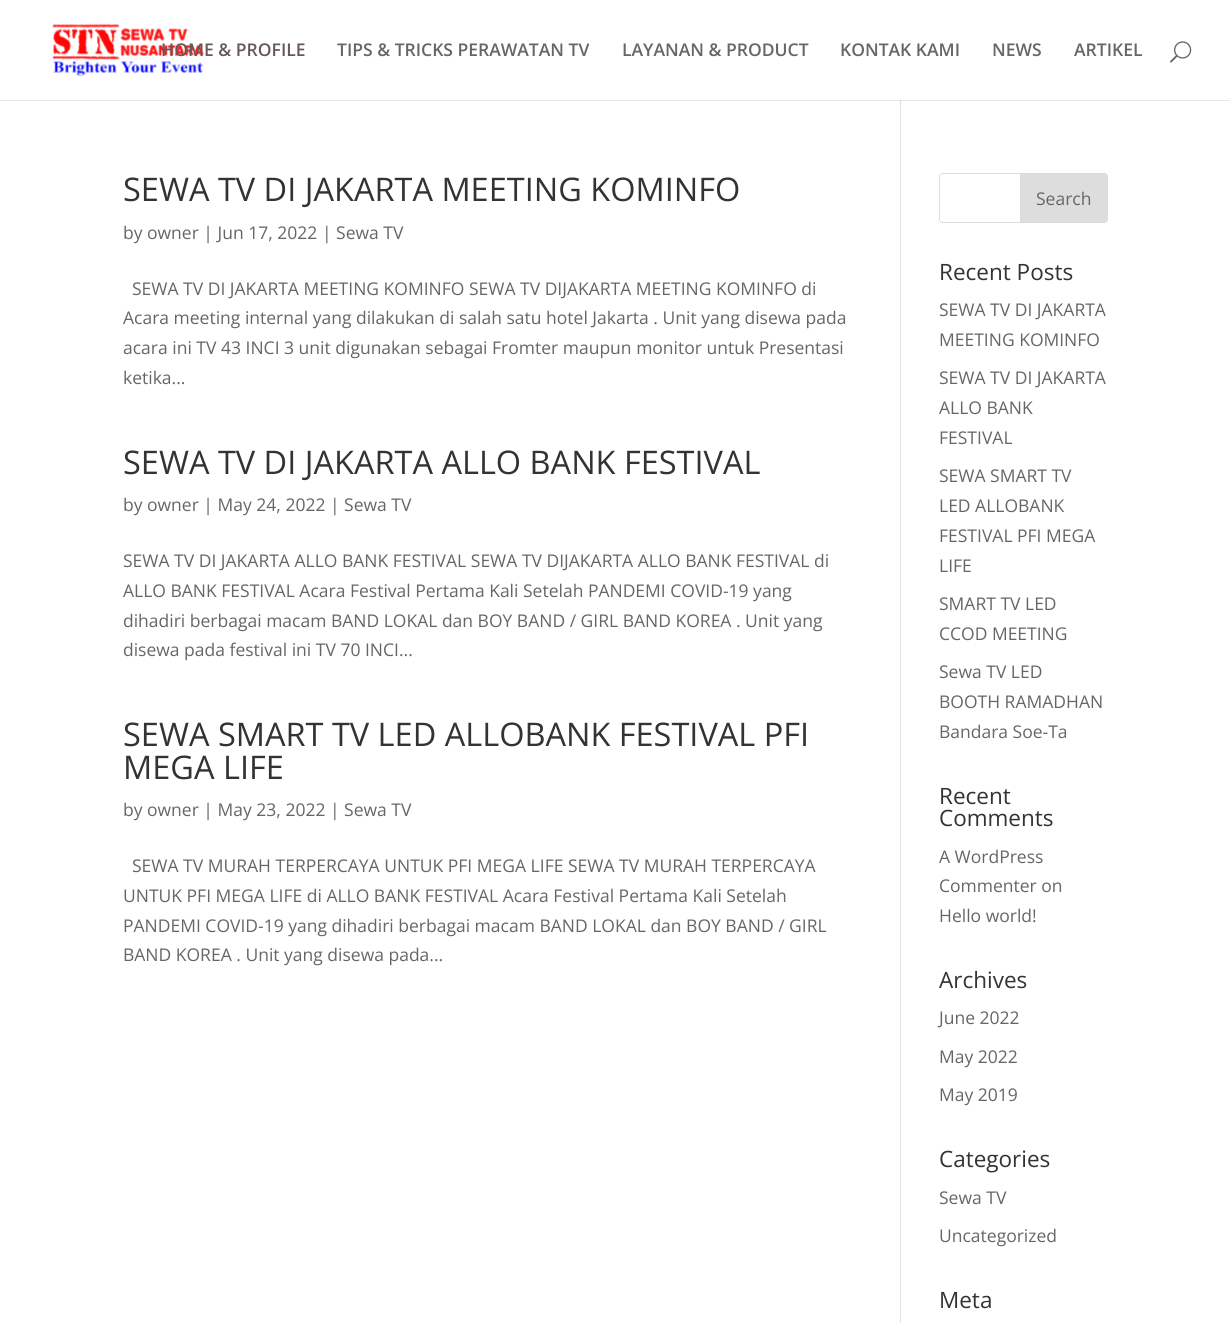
import math
import cairo

surface = cairo.ImageSurface(cairo.Format.RGB24, 1230, 1323)
ctx = cairo.Context(surface)
options = cairo.FontOptions()
options.set_hint_metrics(cairo.HintMetrics.OFF)
options.set_hint_style(cairo.HintStyle.NONE)
ctx.set_font_options(options)
ctx.set_miter_limit(4)


def ink(r, g, b):
    ctx.set_source_rgb(r / 255, g / 255, b / 255)


def write(x, y, s, family, size, color, bold=False, italic=False):
    ctx.select_font_face(family, cairo.FontSlant.ITALIC if italic else cairo.FontSlant.NORMAL, cairo.FontWeight.BOLD if bold else cairo.FontWeight.NORMAL)
    ctx.set_font_size(size)
    ink(*color)
    ctx.move_to(x, y)
    ctx.show_text(s)


def block(x, y, w, h, *color):
    ink(*color)
    ctx.rectangle(x, y, w, h)
    ctx.fill()


def round_path(x, y, w, h, r):
    ctx.new_sub_path()
    for i, (u, v) in enumerate([(x + w - r, y + h - r), (x + r, y + h - r), (x + r, y + r), (x + w - r, y + r)]):
        ctx.arc(u, v, r, i * math.pi / 2, (i + 1) * math.pi / 2)
    ctx.close_path()


def paste(path, x, y, w, h):
    ctx.save()
    ctx.set_source_surface(cairo.ImageSurface.create_from_png(path), x, y)
    ctx.rectangle(x, y, w, h)
    ctx.fill()
    ctx.restore()


s1 = dict(family="Open Sans SemiBold", size=17.5, color=(102, 88, 88))
s2 = dict(family="Open Sans SemiBold", size=17.5, color=(102, 102, 102))
s3 = dict(family="Open Sans", size=32.5, color=(51, 51, 51))
s4 = dict(family="Open Sans", size=17.5, color=(102, 102, 102))
s5 = dict(family="Open Sans", size=22.5, color=(51, 51, 51))

ink(255, 255, 255)
ctx.paint()
block(0, 100, 1230, 1, 230, 230, 230)
paste("pic1.png", 52, 23, 153, 54)
write(161, 56, "HOME & PROFILE", **s1)
write(337, 56, "TIPS & TRICKS PERAWATAN TV", **s2)
write(622, 56, "LAYANAN & PRODUCT", **s2)
write(840, 56, "KONTAK KAMI", **s2)
write(992, 56, "NEWS", **s2)
write(1074, 56, "ARTIKEL", **s2)
paste("pic2.png", 1170, 41, 22, 22)
block(900, 100, 1, 1223, 226, 226, 226)
block(900, 100, 1, 1, 203, 203, 203)
write(123, 201, "SEWA TV DI JAKARTA MEETING KOMINFO", **s3)
write(123, 239, "by owner | Jun 17, 2022 | Sewa TV", **s4)
write(132, 295, "SEWA TV DI JAKARTA MEETING KOMINFO SEWA TV DIJAKARTA MEETING KOMINFO di", **s4)
write(123, 324, "Acara meeting internal yang dilakukan di salah satu hotel Jakarta . Unit yang disewa pada", **s4)
write(123, 354, "acara ini TV 43 INCI 3 unit digunakan sebagai Fromter maupun monitor untuk Presentasi", **s4)
write(123, 384, "ketika...", **s4)
write(123, 474, "SEWA TV DI JAKARTA ALLO BANK FESTIVAL", **s3)
write(123, 511, "by owner | May 24, 2022 | Sewa TV", **s4)
write(123, 567, "SEWA TV DI JAKARTA ALLO BANK FESTIVAL SEWA TV DIJAKARTA ALLO BANK FESTIVAL di", **s4)
write(123, 597, "ALLO BANK FESTIVAL Acara Festival Pertama Kali Setelah PANDEMI COVID-19 yang", **s4)
write(123, 627, "dihadiri berbagai macam BAND LOKAL dan BOY BAND / GIRL BAND KOREA . Unit yang", **s4)
write(123, 656, "disewa pada festival ini TV 70 INCI...", **s4)
write(123, 746, "SEWA SMART TV LED ALLOBANK FESTIVAL PFI", **s3)
write(123, 779, "MEGA LIFE", **s3)
write(123, 816, "by owner | May 23, 2022 | Sewa TV", **s4)
write(132, 872, "SEWA TV MURAH TERPERCAYA UNTUK PFI MEGA LIFE SEWA TV MURAH TERPERCAYA", **s4)
write(123, 902, "UNTUK PFI MEGA LIFE di ALLO BANK FESTIVAL Acara Festival Pertama Kali Setelah", **s4)
write(123, 932, "PANDEMI COVID-19 yang dihadiri berbagai macam BAND LOKAL dan BOY BAND / GIRL", **s4)
write(123, 961, "BAND KOREA . Unit yang disewa pada...", **s4)
round_path(939.5, 173.5, 168, 49, 3.5)
ink(221, 221, 221)
ctx.set_line_width(1)
ctx.stroke()
ctx.new_path()
ctx.move_to(1020.5, 173.5)
ctx.line_to(1104, 173.5)
ctx.curve_to(1106, 173.5, 1107.5, 175, 1107.5, 177)
ctx.line_to(1107.5, 219)
ctx.curve_to(1107.5, 221, 1106, 222.5, 1104, 222.5)
ctx.line_to(1020.5, 222.5)
ctx.close_path()
ctx.fill_preserve()
ctx.stroke()
write(1036, 205, "Search", **s4)
write(939, 280, "Recent Posts", **s5)
write(939, 316, "SEWA TV DI JAKARTA", **s4)
write(939, 346, "MEETING KOMINFO", **s4)
write(939, 384, "SEWA TV DI JAKARTA", **s4)
write(939, 414, "ALLO BANK", **s4)
write(939, 444, "FESTIVAL", **s4)
write(939, 482, "SEWA SMART TV", **s4)
write(939, 512, "LED ALLOBANK", **s4)
write(939, 542, "FESTIVAL PFI MEGA", **s4)
write(939, 572, "LIFE", **s4)
write(939, 610, "SMART TV LED", **s4)
write(939, 640, "CCOD MEETING", **s4)
write(939, 678, "Sewa TV LED", **s4)
write(939, 708, "BOOTH RAMADHAN", **s4)
write(939, 738, "Bandara Soe-Ta", **s4)
write(939, 804, "Recent", **s5)
write(939, 826, "Comments", **s5)
write(939, 863, "A WordPress", **s4)
write(939, 892, "Commenter on", **s4)
write(939, 922, "Hello world!", **s4)
write(939, 988, "Archives", **s5)
write(939, 1024, "June 2022", **s4)
write(939, 1063, "May 2022", **s4)
write(939, 1101, "May 2019", **s4)
write(939, 1167, "Categories", **s5)
write(939, 1204, "Sewa TV", **s4)
write(939, 1242, "Uncategorized", **s4)
write(939, 1308, "Meta", **s5)
surface.write_to_png("screenshot.png")
